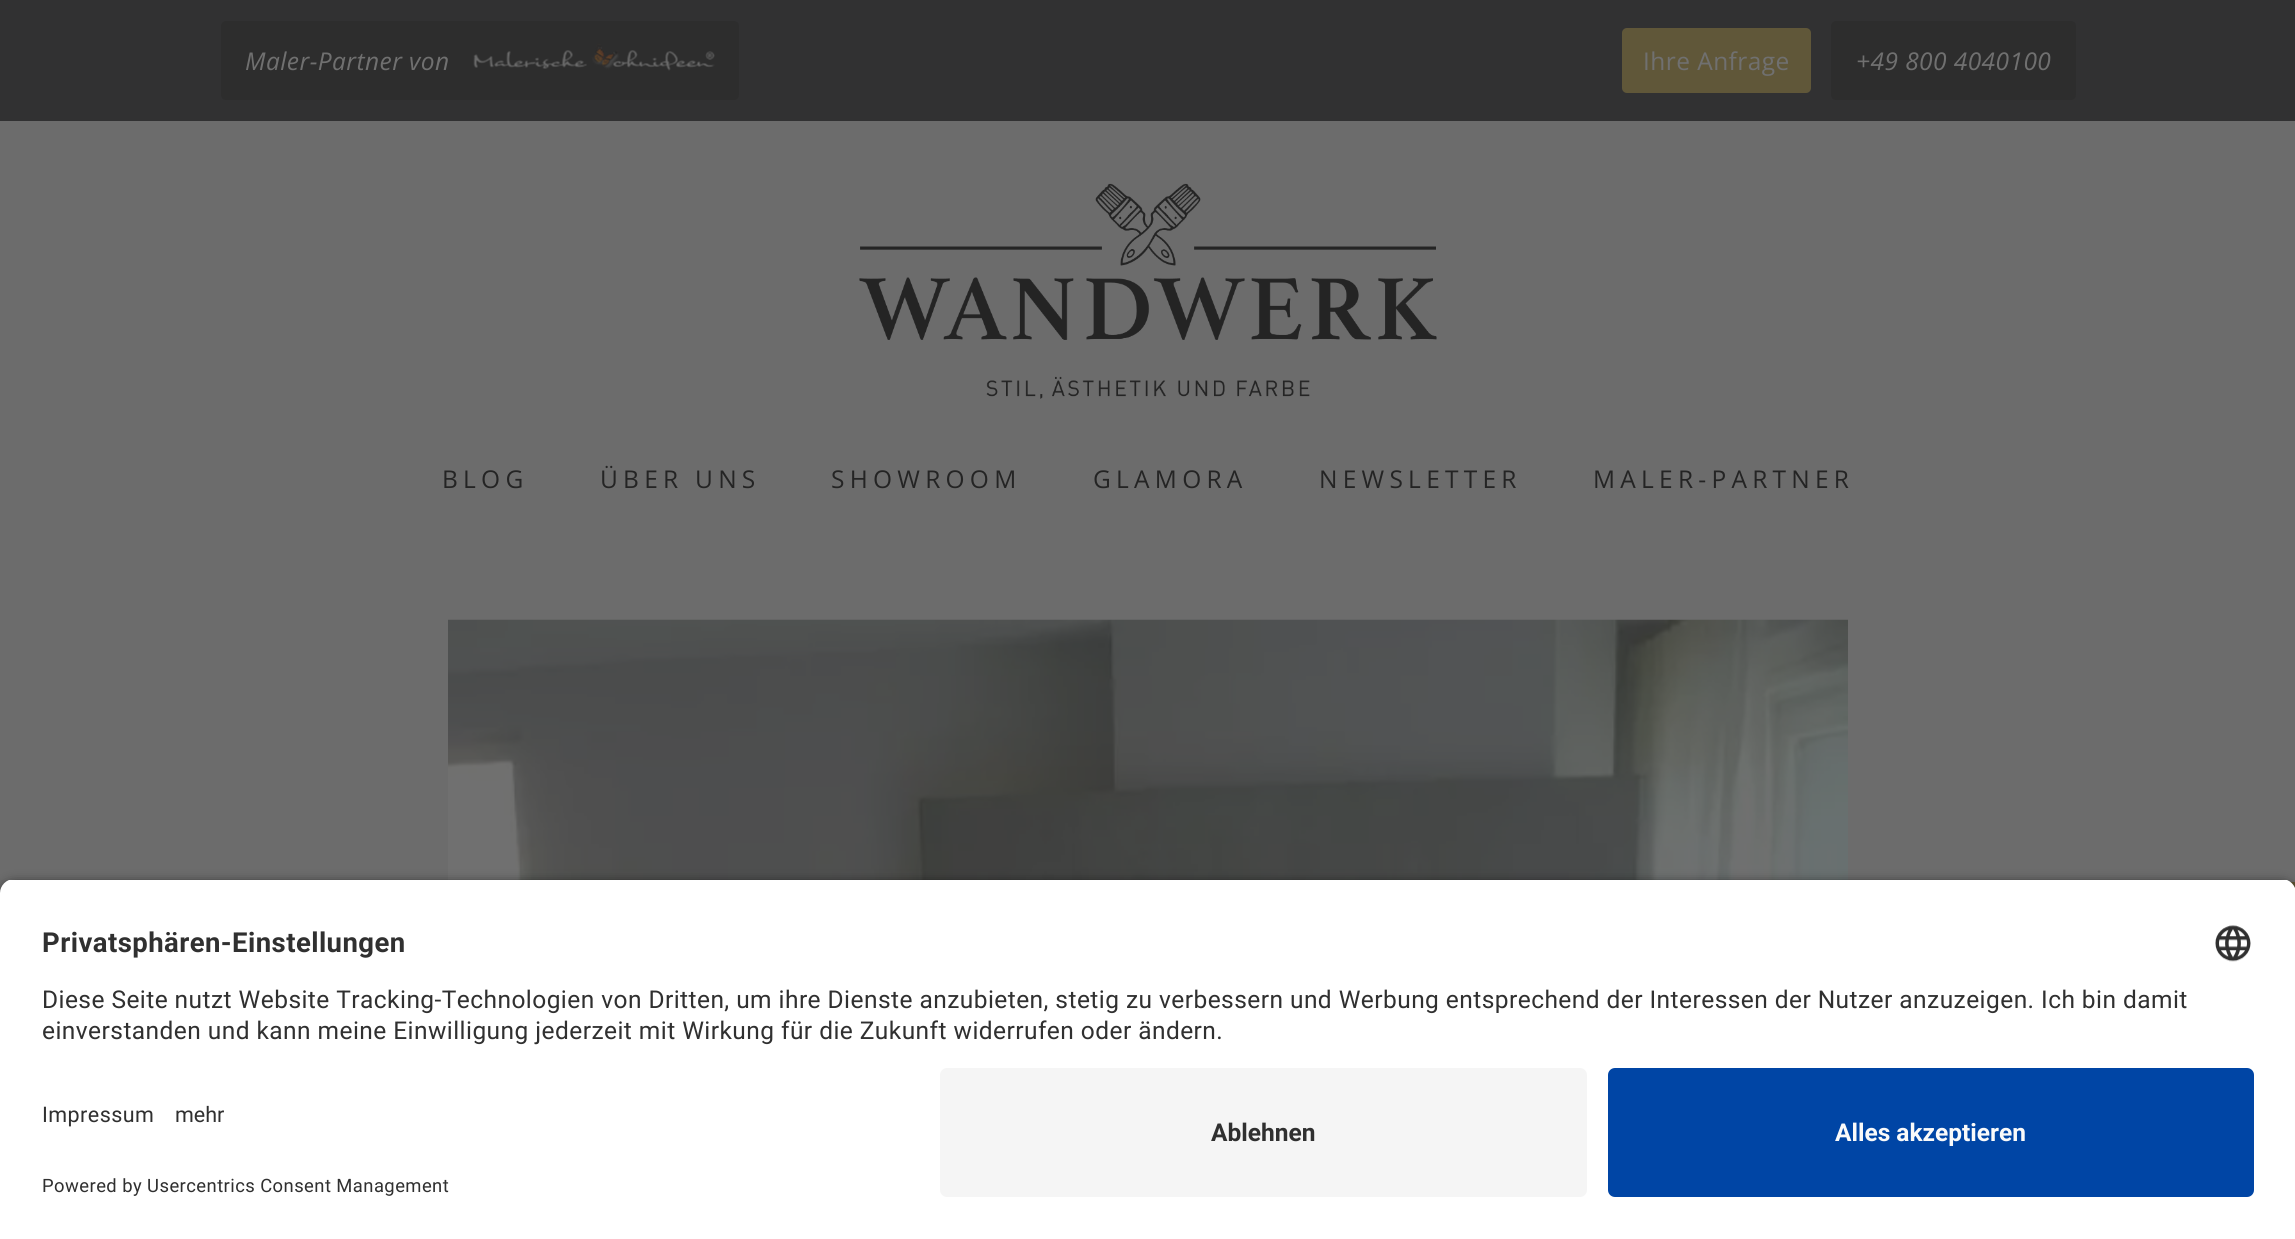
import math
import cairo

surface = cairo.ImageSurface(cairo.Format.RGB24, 2295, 1239)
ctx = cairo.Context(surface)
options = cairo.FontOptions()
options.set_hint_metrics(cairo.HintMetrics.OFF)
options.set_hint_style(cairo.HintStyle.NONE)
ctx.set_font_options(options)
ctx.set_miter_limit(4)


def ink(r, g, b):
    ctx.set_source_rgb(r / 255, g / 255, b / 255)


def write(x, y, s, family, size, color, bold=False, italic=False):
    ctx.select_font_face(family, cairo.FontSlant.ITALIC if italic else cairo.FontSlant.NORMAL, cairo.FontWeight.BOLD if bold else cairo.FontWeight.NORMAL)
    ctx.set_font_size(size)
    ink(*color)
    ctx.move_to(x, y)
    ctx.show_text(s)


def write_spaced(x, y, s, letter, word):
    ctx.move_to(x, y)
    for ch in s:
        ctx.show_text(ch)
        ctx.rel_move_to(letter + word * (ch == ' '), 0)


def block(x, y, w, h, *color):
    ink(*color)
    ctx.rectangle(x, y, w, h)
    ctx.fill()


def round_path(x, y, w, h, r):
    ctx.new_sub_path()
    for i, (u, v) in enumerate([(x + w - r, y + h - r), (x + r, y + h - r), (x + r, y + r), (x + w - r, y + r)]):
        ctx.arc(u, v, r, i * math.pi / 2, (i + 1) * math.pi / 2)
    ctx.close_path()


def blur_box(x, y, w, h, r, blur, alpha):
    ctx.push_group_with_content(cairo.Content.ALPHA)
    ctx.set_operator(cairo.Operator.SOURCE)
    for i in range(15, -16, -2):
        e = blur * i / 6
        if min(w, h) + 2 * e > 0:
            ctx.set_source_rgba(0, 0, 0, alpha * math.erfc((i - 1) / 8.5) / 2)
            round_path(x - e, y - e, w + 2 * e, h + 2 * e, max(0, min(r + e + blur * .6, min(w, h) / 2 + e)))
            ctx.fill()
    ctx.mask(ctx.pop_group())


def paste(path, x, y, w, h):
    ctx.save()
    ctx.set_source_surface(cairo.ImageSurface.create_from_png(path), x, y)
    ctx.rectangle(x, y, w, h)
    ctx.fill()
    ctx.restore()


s1 = dict(family="Roboto", size=21.5, color=(48, 48, 48))
s2 = dict(family="Roboto", size=24.5, color=(48, 48, 48), bold=True)
s3 = dict(family="Roboto", size=24.5, color=(250, 250, 250), bold=True)

ink(108, 108, 108)
ctx.paint()
block(0, 0, 2295, 121, 49, 49, 50)
ink(45, 45, 45)
round_path(221, 21, 518, 79, 5)
ctx.fill()
ctx.select_font_face("Open Sans", cairo.FontSlant.ITALIC)
ctx.set_font_size(24.5)
ink(112, 112, 112)
write_spaced(245, 70, "Maler-Partner von", 0.44, 0)
paste("pic1.png", 473, 43, 242, 28)
ink(96, 87, 57)
round_path(1622, 28, 189, 65, 5)
ctx.fill()
ctx.select_font_face("Open Sans")
ink(112, 112, 112)
write_spaced(1643, 70, "Ihre Anfrage", 0.44, 0)
ink(45, 45, 45)
round_path(1831, 21, 245, 79, 5)
ctx.fill()
ctx.select_font_face("Open Sans", cairo.FontSlant.ITALIC)
ink(112, 112, 112)
write_spaced(1856, 70, "+49 800 4040100", 0.44, 0)
paste("pic2.png", 859, 183, 578, 216)
ctx.select_font_face("Open Sans")
ink(36, 36, 36)
write_spaced(442, 488, "BLOG", 5.25, 0)
write_spaced(600, 488, "ÜBER UNS", 5.25, 0)
write_spaced(831, 488, "SHOWROOM", 5.25, 0)
write_spaced(1093, 488, "GLAMORA", 5.25, 0)
write_spaced(1319, 488, "NEWSLETTER", 5.25, 0)
write_spaced(1593, 488, "MALER-PARTNER", 5.25, 0)
paste("pic3.png", 448, 619, 1400, 261)
block(2290, 882, 5, 6, 95, 85, 52)
ink(0, 0, 0)
blur_box(0, 884, 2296, 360, 14, 6, 0.8)
ctx.save()
ctx.new_path()
ctx.move_to(14, 879)
ctx.line_to(2282, 879)
ctx.curve_to(2289.5, 879, 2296, 885.5, 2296, 893)
ctx.line_to(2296, 1054)
ctx.line_to(0, 1054)
ctx.line_to(0, 893)
ctx.curve_to(0, 885.5, 6.5, 879, 14, 879)
ctx.close_path()
ctx.clip()
block(0, 880, 2295, 174, 255, 255, 255)
ctx.restore()
ctx.select_font_face("Roboto", cairo.FontSlant.NORMAL, cairo.FontWeight.BOLD)
ctx.set_font_size(27.5)
ink(48, 48, 48)
write_spaced(42, 952, "Privatsphären-Einstellungen", 0.44, 0)
paste("pic4.png", 2215, 925, 36, 37)
ctx.select_font_face("Roboto")
ctx.set_font_size(24.5)
write_spaced(42, 1008, "Diese Seite nutzt Website Tracking-Technologien von Dritten, um ihre Dienste anzubieten, stetig zu verbessern und Werbung entsprechend der Interessen der Nutzer anzuzeigen. Ich bin damit", 0.44, 0)
write_spaced(42, 1039, "einverstanden und kann meine Einwilligung jederzeit mit Wirkung für die Zukunft widerrufen oder ändern.", 0.44, 0)
block(0, 1054, 2295, 185, 255, 255, 255)
ctx.set_font_size(21.5)
ink(48, 48, 48)
write_spaced(42, 1122, "Impressum", 0.44, 0)
write(175, 1122, "mehr", **s1)
ctx.set_font_size(18.4)
write_spaced(42, 1192, "Powered by Usercentrics Consent Management", 0.44, 0)
ink(245, 245, 245)
round_path(940, 1068, 647, 129, 7)
ctx.fill()
write(1211, 1141, "Ablehnen", **s2)
ink(0, 69, 165)
round_path(1608, 1068, 646, 129, 7)
ctx.fill()
write(1835, 1141, "Alles akzeptieren", **s3)
surface.write_to_png("screenshot.png")
